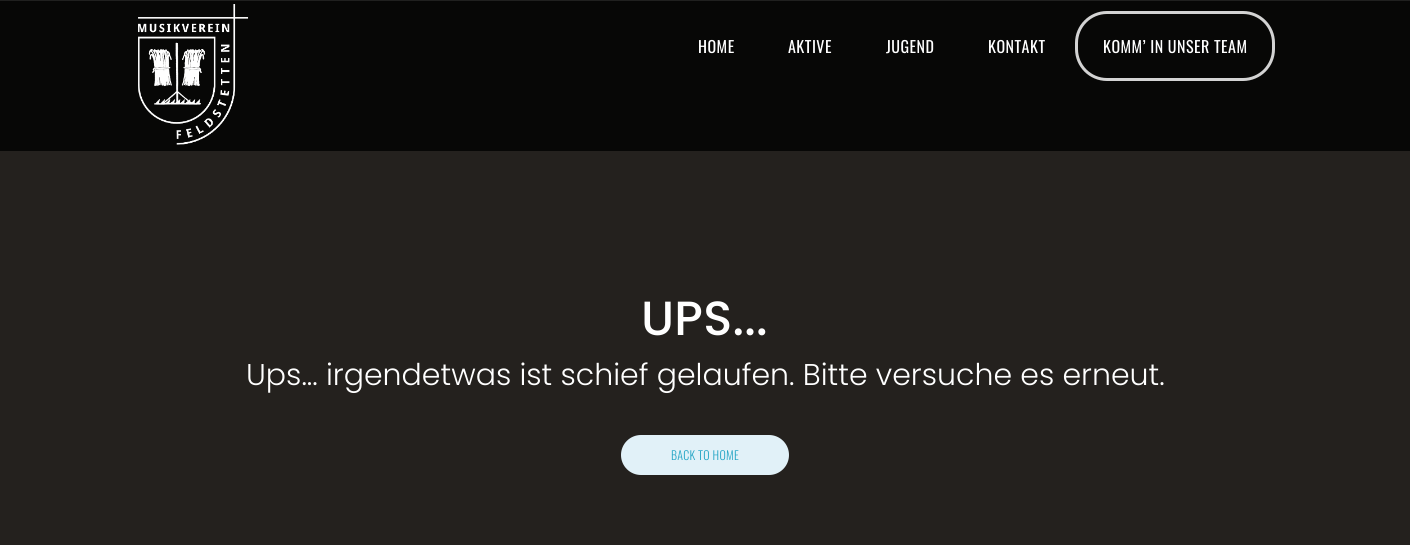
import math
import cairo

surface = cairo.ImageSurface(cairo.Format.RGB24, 1410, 545)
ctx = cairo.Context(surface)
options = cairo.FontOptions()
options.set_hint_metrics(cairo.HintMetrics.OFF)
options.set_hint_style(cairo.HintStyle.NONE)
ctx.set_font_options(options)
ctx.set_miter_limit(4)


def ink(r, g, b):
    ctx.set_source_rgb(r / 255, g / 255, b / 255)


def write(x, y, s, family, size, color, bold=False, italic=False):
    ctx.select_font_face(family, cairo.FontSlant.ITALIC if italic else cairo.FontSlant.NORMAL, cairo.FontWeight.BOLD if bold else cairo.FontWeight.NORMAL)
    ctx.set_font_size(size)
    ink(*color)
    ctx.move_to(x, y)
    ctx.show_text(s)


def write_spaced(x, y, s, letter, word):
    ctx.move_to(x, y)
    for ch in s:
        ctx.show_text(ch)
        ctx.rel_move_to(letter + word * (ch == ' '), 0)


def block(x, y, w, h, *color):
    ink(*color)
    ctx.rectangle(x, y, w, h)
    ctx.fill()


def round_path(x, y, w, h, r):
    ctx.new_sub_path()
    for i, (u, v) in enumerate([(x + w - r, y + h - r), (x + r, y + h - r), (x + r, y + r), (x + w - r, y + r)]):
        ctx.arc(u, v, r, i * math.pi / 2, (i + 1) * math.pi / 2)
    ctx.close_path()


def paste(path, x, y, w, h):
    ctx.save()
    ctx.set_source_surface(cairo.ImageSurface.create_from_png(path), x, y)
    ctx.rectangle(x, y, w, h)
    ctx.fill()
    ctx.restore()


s1 = dict(family="Poppins Light", size=30, color=(255, 255, 255))

ink(36, 33, 30)
ctx.paint()
block(0, 1, 1410, 150, 7, 7, 6)
block(0, 0, 1410, 1, 32, 32, 31)
paste("pic1.png", 138, 4, 111, 141)
ctx.select_font_face("Oswald")
ctx.set_font_size(16)
ink(255, 255, 255)
write_spaced(698, 53, "HOME", 0.5, 0)
write_spaced(788, 53, "AKTIVE", 0.5, 0)
write_spaced(886, 53, "JUGEND", 0.5, 0)
write_spaced(988, 53, "KONTAKT", 0.5, 0)
round_path(1076.5, 12.5, 197, 67, 30.5)
ink(211, 211, 211)
ctx.set_line_width(3)
ctx.stroke()
ink(255, 255, 255)
write_spaced(1103, 53, "KOMM’ IN UNSER TEAM", 0.5, 0)
ctx.select_font_face("Poppins Medium")
ctx.set_font_size(48)
write_spaced(641, 335, "UPS...", 0.25, 0)
write(246, 385, "Ups... irgendetwas ist schief gelaufen. Bitte versuche es erneut.", **s1)
ink(225, 241, 248)
round_path(621, 435, 168, 40, 20)
ctx.fill()
ctx.select_font_face("Oswald Light")
ctx.set_font_size(12)
ink(36, 165, 197)
write_spaced(671, 460, "BACK TO HOME", 0.25, 0)
surface.write_to_png("screenshot.png")
